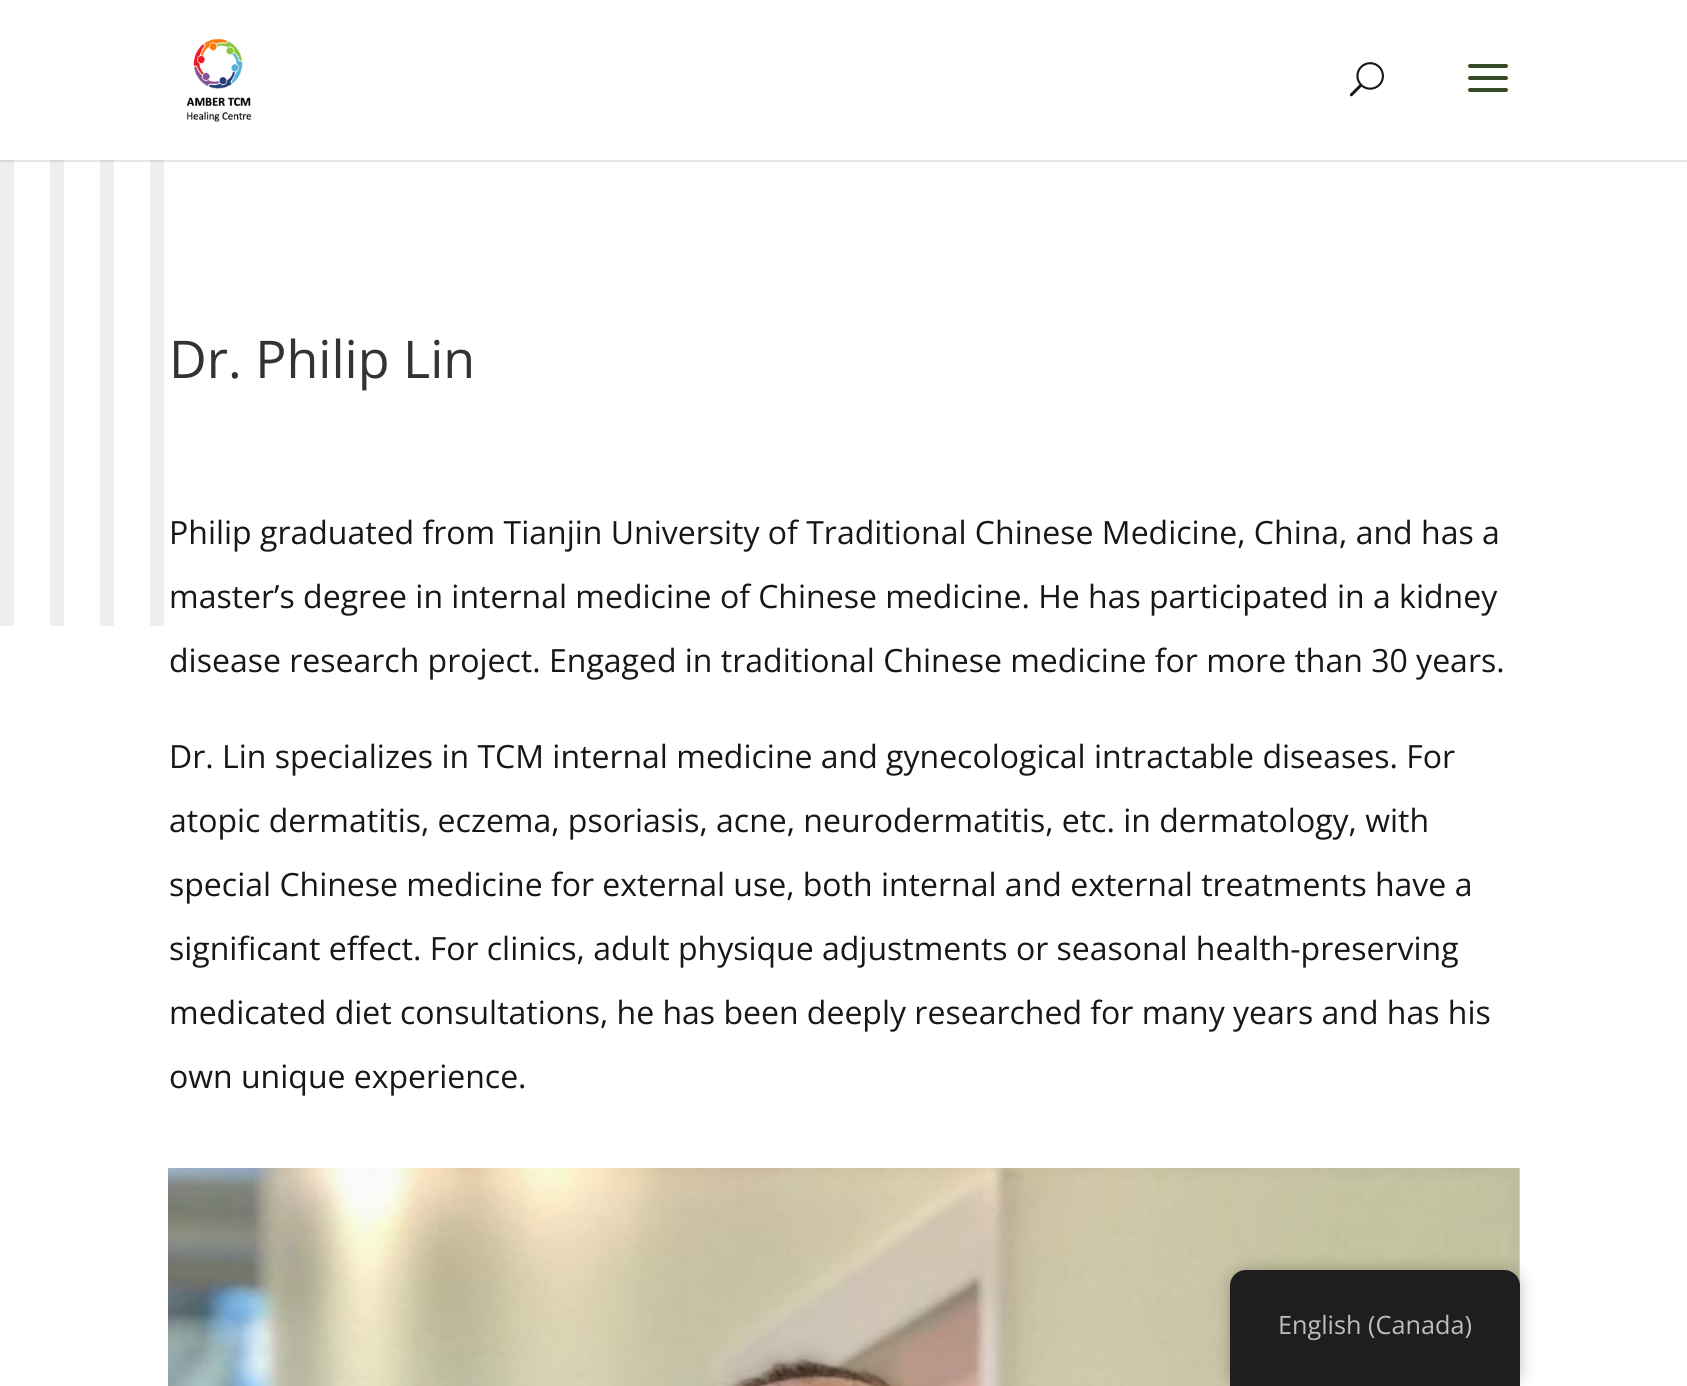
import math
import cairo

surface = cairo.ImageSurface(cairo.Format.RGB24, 1687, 1386)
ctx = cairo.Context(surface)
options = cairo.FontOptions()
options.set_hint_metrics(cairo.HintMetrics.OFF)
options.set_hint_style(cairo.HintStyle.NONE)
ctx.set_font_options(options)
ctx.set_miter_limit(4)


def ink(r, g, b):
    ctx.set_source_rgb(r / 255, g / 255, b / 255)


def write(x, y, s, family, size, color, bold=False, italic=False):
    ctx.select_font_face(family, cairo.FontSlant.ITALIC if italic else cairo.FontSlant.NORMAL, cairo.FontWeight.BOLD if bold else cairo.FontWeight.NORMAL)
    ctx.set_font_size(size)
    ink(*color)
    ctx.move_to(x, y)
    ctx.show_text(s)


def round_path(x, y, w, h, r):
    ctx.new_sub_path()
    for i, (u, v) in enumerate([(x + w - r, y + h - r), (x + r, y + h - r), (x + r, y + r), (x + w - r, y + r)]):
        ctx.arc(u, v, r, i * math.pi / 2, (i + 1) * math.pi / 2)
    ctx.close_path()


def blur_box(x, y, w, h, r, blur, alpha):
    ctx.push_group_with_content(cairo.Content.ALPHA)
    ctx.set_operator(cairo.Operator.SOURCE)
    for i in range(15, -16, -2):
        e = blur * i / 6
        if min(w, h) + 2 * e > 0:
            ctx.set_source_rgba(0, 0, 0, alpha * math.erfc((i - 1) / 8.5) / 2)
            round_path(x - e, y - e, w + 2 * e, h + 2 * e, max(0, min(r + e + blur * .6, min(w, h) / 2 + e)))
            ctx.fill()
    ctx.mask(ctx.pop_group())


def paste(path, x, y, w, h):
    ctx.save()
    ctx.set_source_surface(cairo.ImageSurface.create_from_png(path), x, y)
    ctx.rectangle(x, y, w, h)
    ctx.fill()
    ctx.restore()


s1 = dict(family="Open Sans", size=52, color=(51, 51, 51))
s2 = dict(family="Open Sans", size=32, color=(23, 23, 23))
s3 = dict(family="Open Sans", size=25.25, color=(189, 189, 189))

ink(255, 255, 255)
ctx.paint()
paste("pic4.png", 0, 160, 164, 466)
ctx.set_source_rgba(0, 0, 0, 0.1)
ctx.rectangle(0, 160, 1687, 2)
ctx.fill()
paste("pic1.png", 186, 38, 66, 84)
paste("pic2.png", 1349, 62, 35, 35)
paste("pic3.png", 1468, 64, 40, 28)
write(169, 378, "Dr. Philip Lin", **s1)
write(169, 544, "Philip graduated from Tianjin University of Traditional Chinese Medicine, China, and has a", **s2)
write(169, 608, "master’s degree in internal medicine of Chinese medicine. He has participated in a kidney", **s2)
write(169, 672, "disease research project. Engaged in traditional Chinese medicine for more than 30 years.", **s2)
write(169, 768, "Dr. Lin specializes in TCM internal medicine and gynecological intractable diseases. For", **s2)
write(169, 832, "atopic dermatitis, eczema, psoriasis, acne, neurodermatitis, etc. in dermatology, with", **s2)
write(169, 896, "special Chinese medicine for external use, both internal and external treatments have a", **s2)
write(169, 960, "significant effect. For clinics, adult physique adjustments or seasonal health-preserving", **s2)
write(169, 1024, "medicated diet consultations, he has been deeply researched for many years and has his", **s2)
write(169, 1088, "own unique experience.", **s2)
paste("pic5.png", 168, 1168, 1352, 218)
ink(0, 0, 0)
blur_box(1230, 1270, 290, 116, 16, 8, 0.25)
ink(30, 30, 30)
ctx.new_path()
ctx.move_to(1246, 1270)
ctx.line_to(1504, 1270)
ctx.curve_to(1513, 1270, 1520, 1277, 1520, 1286)
ctx.line_to(1520, 1386)
ctx.line_to(1230, 1386)
ctx.line_to(1230, 1286)
ctx.curve_to(1230, 1277, 1237, 1270, 1246, 1270)
ctx.close_path()
ctx.fill()
write(1278, 1334, "English (Canada)", **s3)
surface.write_to_png("screenshot.png")
